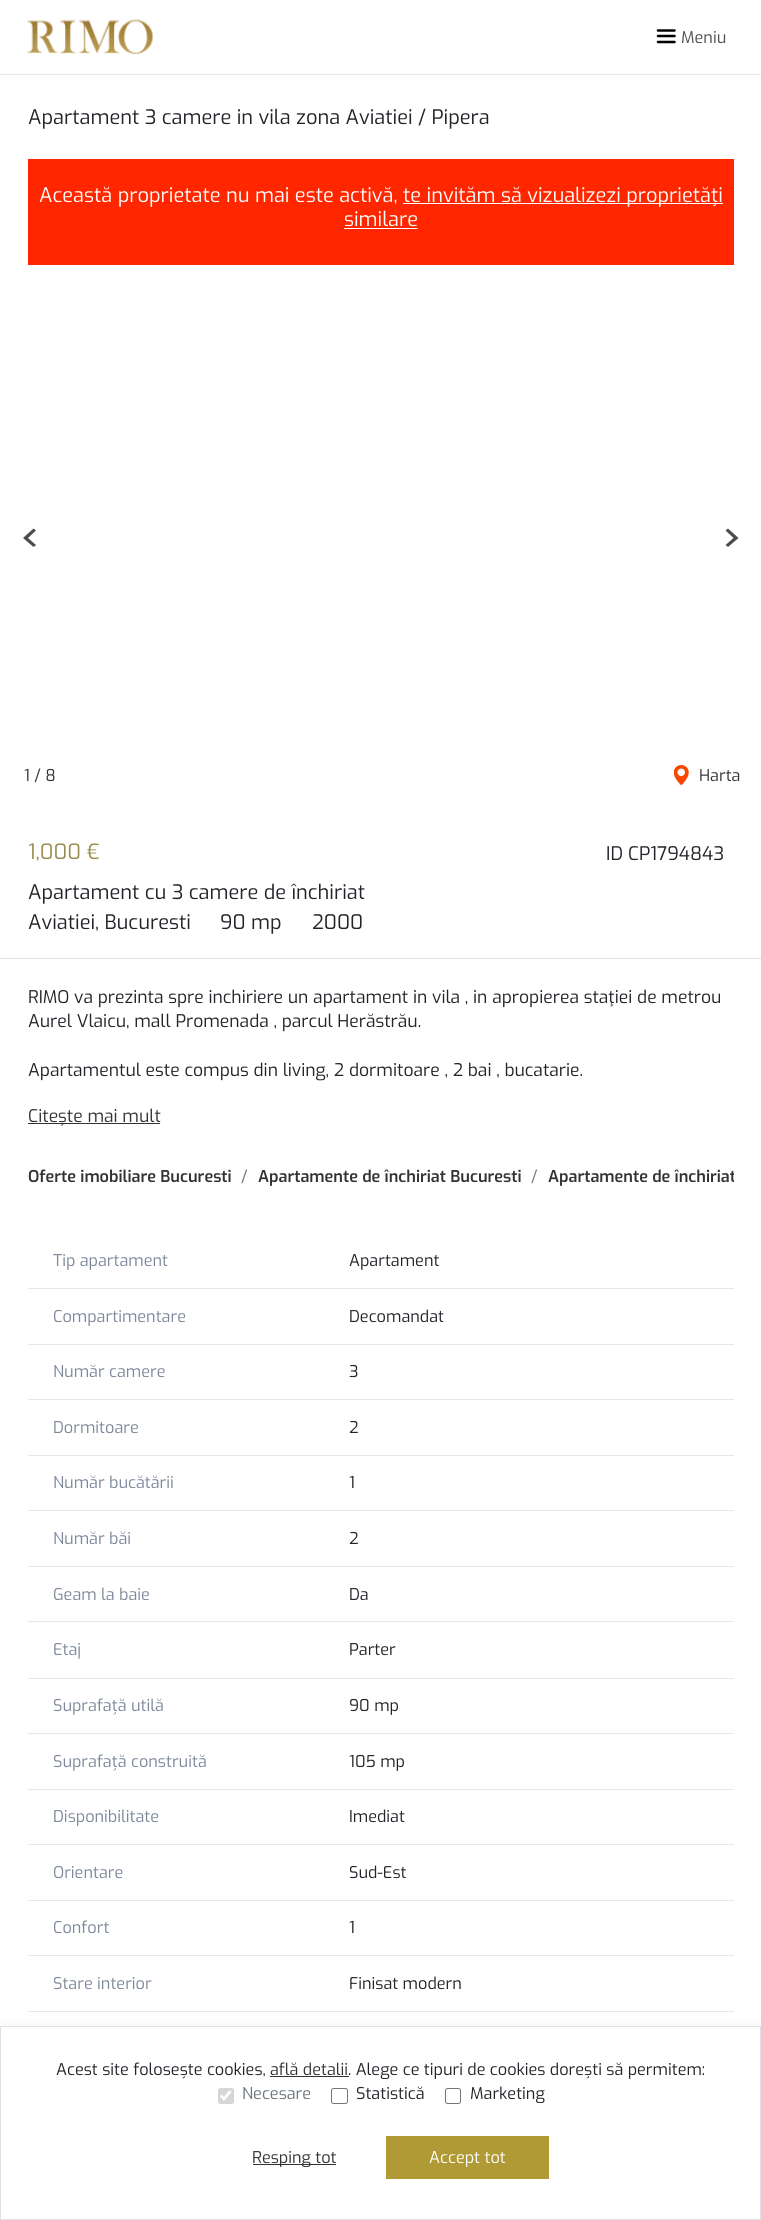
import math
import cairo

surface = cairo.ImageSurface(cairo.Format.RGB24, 761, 2220)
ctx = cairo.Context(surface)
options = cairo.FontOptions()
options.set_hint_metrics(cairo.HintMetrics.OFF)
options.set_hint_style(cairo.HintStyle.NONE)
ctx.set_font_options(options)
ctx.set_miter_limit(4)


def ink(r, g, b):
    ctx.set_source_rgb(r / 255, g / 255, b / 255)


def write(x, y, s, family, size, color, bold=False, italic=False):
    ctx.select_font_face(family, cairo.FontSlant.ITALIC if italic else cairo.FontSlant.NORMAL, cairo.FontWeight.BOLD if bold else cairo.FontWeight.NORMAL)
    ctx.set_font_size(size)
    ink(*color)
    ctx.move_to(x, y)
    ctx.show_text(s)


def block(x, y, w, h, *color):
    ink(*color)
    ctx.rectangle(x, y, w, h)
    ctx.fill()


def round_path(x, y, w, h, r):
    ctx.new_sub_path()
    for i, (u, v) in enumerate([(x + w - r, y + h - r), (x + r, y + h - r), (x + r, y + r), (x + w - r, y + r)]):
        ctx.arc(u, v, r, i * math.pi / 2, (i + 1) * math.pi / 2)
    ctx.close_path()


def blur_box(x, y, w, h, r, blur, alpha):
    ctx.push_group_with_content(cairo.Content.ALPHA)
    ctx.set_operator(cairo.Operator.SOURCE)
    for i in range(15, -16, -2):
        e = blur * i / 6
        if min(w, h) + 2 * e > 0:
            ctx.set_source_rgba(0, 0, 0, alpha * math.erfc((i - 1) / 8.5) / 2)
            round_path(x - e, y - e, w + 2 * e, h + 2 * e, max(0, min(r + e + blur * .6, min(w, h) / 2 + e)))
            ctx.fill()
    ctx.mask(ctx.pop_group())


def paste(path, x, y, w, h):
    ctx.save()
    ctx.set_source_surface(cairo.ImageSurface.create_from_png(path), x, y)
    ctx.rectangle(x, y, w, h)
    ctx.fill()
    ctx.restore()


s1 = dict(family="Exo", size=16.25, color=(76, 76, 76))
s2 = dict(family="Exo", size=20, color=(33, 37, 41))
s3 = dict(family="Exo", size=20, color=(255, 255, 255))
s4 = dict(family="Exo", size=16.25, color=(51, 51, 51))
s5 = dict(family="Exo", size=21, color=(156, 142, 80))
s6 = dict(family="Exo", size=18.75, color=(33, 37, 41))
s7 = dict(family="Exo", size=17.5, color=(33, 37, 41))
s8 = dict(family="Exo", size=17.5, color=(51, 51, 51))
s9 = dict(family="Exo SemiBold", size=16.25, color=(51, 51, 51))
s10 = dict(family="Exo", size=16.25, color=(108, 117, 125))
s11 = dict(family="Exo", size=16.25, color=(125, 136, 154))
s12 = dict(family="Exo", size=16.25, color=(33, 37, 41))
s13 = dict(family="Exo", size=16.25, color=(255, 255, 255))

ink(255, 255, 255)
ctx.paint()
block(0, 74, 761, 1, 232, 233, 238)
paste("pic1.png", 27, 19, 126, 35)
ctx.new_path()
ctx.move_to(658, 36)
ctx.line_to(674.5, 36)
ctx.move_to(658, 30.5)
ctx.line_to(674.5, 30.5)
ctx.move_to(658, 42)
ctx.line_to(674.5, 42)
ink(0, 0, 0)
ctx.set_line_width(2.5)
ctx.set_line_cap(cairo.LineCap.ROUND)
ctx.set_line_join(cairo.LineJoin.ROUND)
ctx.stroke()
write(681, 43, "Meniu", **s1)
write(28, 124, "Apartament 3 camere in vila zona Aviatiei / Pipera", **s2)
block(28, 159, 706, 106, 255, 38, 0)
write(39, 202, "Această proprietate nu mai este activă,", **s3)
block(403, 203, 320, 1, 255, 255, 255)
write(403, 202, "te invităm să vizualizezi proprietăți", **s3)
write(344, 226, "similare", **s3)
block(344, 228, 74, 1, 255, 255, 255)
ink(77, 77, 77)
ctx.new_path()
ctx.move_to(36, 530.5)
ctx.line_to(28, 538)
ctx.line_to(36, 545)
ctx.line_to(33.5, 547)
ctx.line_to(23, 538)
ctx.line_to(33.5, 528.5)
ctx.close_path()
ctx.fill()
ctx.new_path()
ctx.move_to(725.5, 545)
ctx.line_to(733.5, 538)
ctx.line_to(725.5, 530.5)
ctx.line_to(728, 528.5)
ctx.line_to(738.5, 538)
ctx.line_to(728, 547)
ctx.close_path()
ctx.fill()
write(24, 781, "1 / 8", **s4)
paste("pic2.png", 674, 765, 15, 20)
write(699, 781, "Harta", **s4)
block(0, 958, 761, 1, 222, 226, 230)
write(28, 859, "1,000 €", **s5)
write(606, 860, "ID CP1794843", **s6)
write(28, 899, "Apartament cu 3 camere de închiriat", **s2)
write(28, 929, "Aviatiei, Bucuresti", **s2)
write(220, 929, "90 mp", **s2)
write(312, 929, "2000", **s2)
write(28, 1003, "RIMO va prezinta spre inchiriere un apartament in vila , in apropierea staţiei de metrou", **s7)
write(28, 1027, "Aurel Vlaicu, mall Promenada , parcul Herăstrău.", **s7)
write(28, 1076, "Apartamentul este compus din living, 2 dormitoare , 2 bai , bucatarie.", **s7)
block(28, 1123, 132, 1, 51, 51, 51)
write(28, 1122, "Citește mai mult", **s8)
write(28, 1182, "Oferte imobiliare Bucuresti", **s9)
write(241, 1182, "/", **s10)
write(258, 1182, "Apartamente de închiriat Bucuresti", **s9)
write(531, 1182, "/", **s10)
ctx.save()
ctx.rectangle(28, 1149, 706, 55)
ctx.clip()
write(548, 1182, "Apartamente de închiriat", **s9)
ctx.restore()
block(28, 1288, 706, 1, 228, 231, 235)
write(53, 1266, "Tip apartament", **s11)
write(349, 1266, "Apartament", **s12)
block(28, 1344, 706, 1, 228, 231, 235)
write(53, 1322, "Compartimentare", **s11)
write(349, 1322, "Decomandat", **s12)
block(28, 1399, 706, 1, 228, 231, 235)
write(53, 1377, "Număr camere", **s11)
write(349, 1377, "3", **s12)
block(28, 1455, 706, 1, 228, 231, 235)
write(53, 1433, "Dormitoare", **s11)
write(349, 1433, "2", **s12)
block(28, 1510, 706, 1, 228, 231, 235)
write(53, 1488, "Număr bucătării", **s11)
write(349, 1488, "1", **s12)
block(28, 1566, 706, 1, 228, 231, 235)
write(53, 1544, "Număr băi", **s11)
write(349, 1544, "2", **s12)
block(28, 1621, 706, 1, 228, 231, 235)
write(53, 1600, "Geam la baie", **s11)
write(349, 1600, "Da", **s12)
block(28, 1678, 706, 1, 228, 231, 235)
write(53, 1655, "Etaj", **s11)
write(349, 1655, "Parter", **s12)
block(28, 1733, 706, 1, 228, 231, 235)
write(53, 1711, "Suprafață utilă", **s11)
write(349, 1711, "90 mp", **s12)
block(28, 1789, 706, 1, 228, 231, 235)
write(53, 1767, "Suprafață construită", **s11)
write(349, 1767, "105 mp", **s12)
block(28, 1844, 706, 1, 228, 231, 235)
write(53, 1822, "Disponibilitate", **s11)
write(349, 1822, "Imediat", **s12)
block(28, 1900, 706, 1, 228, 231, 235)
write(53, 1878, "Orientare", **s11)
write(349, 1878, "Sud-Est", **s12)
block(28, 1955, 706, 1, 228, 231, 235)
write(53, 1933, "Confort", **s11)
write(349, 1933, "1", **s12)
block(28, 2011, 706, 1, 228, 231, 235)
write(53, 1989, "Stare interior", **s11)
write(349, 1989, "Finisat modern", **s12)
ink(0, 0, 0)
blur_box(0, 2036, 761, 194, 0, 10, 0.15)
ink(255, 255, 255)
ctx.rectangle(0.5, 2026.5, 760, 193)
ctx.fill_preserve()
ink(222, 226, 230)
ctx.set_line_width(1)
ctx.set_line_cap(cairo.LineCap.BUTT)
ctx.set_line_join(cairo.LineJoin.MITER)
ctx.stroke()
write(56, 2075, "Acest site folosește cookies,", **s12)
write(270, 2075, "află detalii", **s4)
write(348, 2075, ". Alege ce tipuri de cookies dorești să permitem:", **s12)
block(270, 2076, 79, 1, 51, 51, 51)
ink(214, 214, 214)
round_path(218, 2088, 16, 16, 2.5)
ctx.fill()
ctx.new_path()
ctx.move_to(221, 2095.5)
ctx.line_to(224, 2099)
ctx.line_to(230.5, 2091)
ink(255, 255, 255)
ctx.set_line_width(2.6)
ctx.stroke()
write(242, 2099, "Necesare", **s10)
round_path(331.5, 2088.5, 16, 15, 2)
ink(118, 118, 118)
ctx.set_line_width(1)
ctx.stroke()
write(356, 2099, "Statistică", **s12)
round_path(445.5, 2088.5, 15, 15, 2)
ink(118, 118, 118)
ctx.stroke()
write(470, 2099, "Marketing", **s12)
block(253, 2164, 83, 1, 51, 51, 51)
write(252, 2163, "Resping tot", **s4)
block(386, 2136, 163, 43, 176, 154, 54)
write(429, 2163, "Accept tot", **s13)
surface.write_to_png("screenshot.png")
